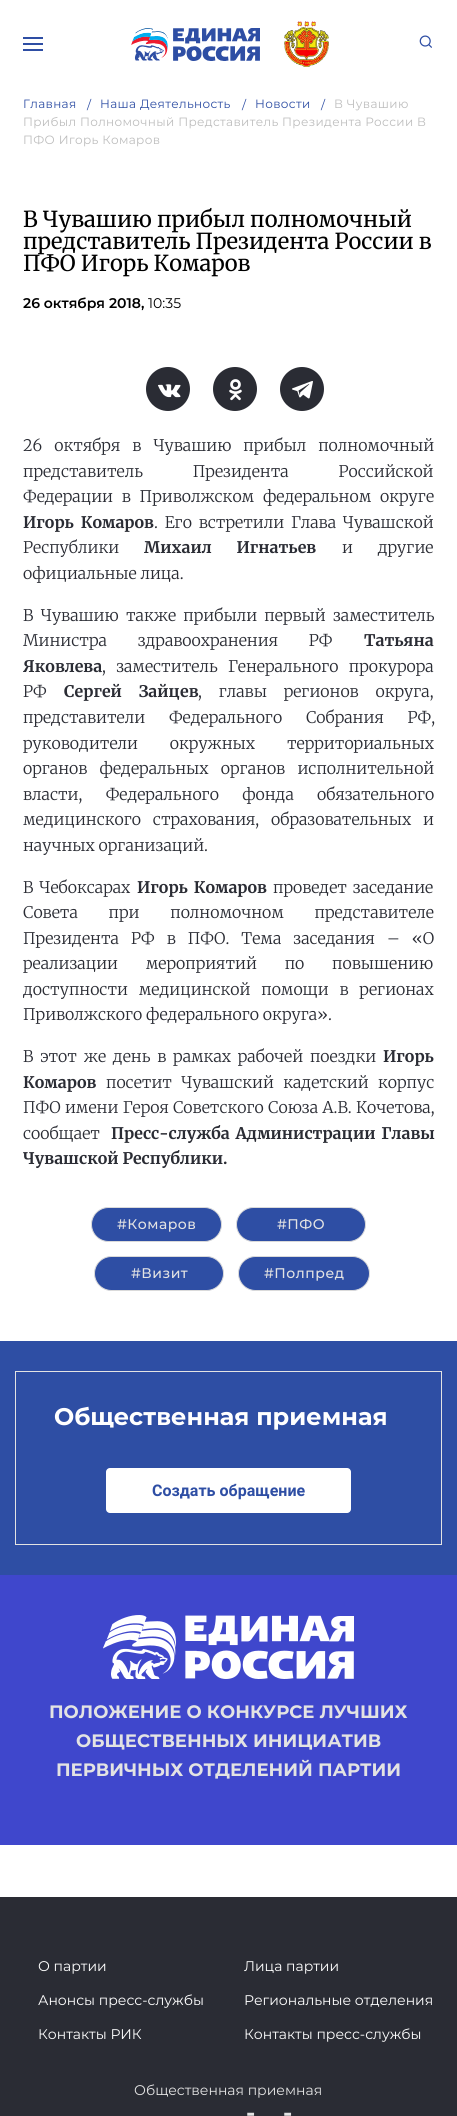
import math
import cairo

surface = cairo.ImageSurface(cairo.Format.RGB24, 457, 2116)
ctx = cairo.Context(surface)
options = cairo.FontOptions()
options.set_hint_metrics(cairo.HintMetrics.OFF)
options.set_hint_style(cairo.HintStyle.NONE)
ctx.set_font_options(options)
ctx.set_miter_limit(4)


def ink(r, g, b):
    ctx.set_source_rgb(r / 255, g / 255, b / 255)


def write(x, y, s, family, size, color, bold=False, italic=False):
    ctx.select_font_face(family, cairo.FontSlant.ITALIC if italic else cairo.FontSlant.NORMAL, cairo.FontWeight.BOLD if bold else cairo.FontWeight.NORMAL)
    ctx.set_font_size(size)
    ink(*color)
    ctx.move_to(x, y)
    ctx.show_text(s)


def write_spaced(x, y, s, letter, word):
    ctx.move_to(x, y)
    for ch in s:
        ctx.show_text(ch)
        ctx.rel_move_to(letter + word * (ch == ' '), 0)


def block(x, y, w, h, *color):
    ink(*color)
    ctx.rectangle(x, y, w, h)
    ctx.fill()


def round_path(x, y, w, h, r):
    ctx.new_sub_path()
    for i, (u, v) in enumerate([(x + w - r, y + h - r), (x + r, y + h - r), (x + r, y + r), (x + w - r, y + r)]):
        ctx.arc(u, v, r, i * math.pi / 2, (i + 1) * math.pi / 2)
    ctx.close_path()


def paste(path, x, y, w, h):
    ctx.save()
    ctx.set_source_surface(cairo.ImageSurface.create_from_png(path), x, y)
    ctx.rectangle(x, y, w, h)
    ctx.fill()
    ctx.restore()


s1 = dict(family="Merriweather", size=22, color=(0, 0, 0))
s2 = dict(family="Montserrat SemiBold", size=14, color=(0, 0, 0))
s3 = dict(family="Montserrat", size=14, color=(0, 0, 0))
s4 = dict(family="Merriweather Light", size=16, color=(42, 44, 52))
s5 = dict(family="Merriweather", size=16, color=(42, 44, 52), bold=True)
s6 = dict(family="Montserrat", size=24, color=(255, 255, 255), bold=True)
s7 = dict(family="Roboto", size=16, color=(46, 78, 164), bold=True)
s8 = dict(family="Montserrat", size=18, color=(227, 227, 227), bold=True)
s9 = dict(family="Montserrat", size=14, color=(255, 255, 255))
s10 = dict(family="Montserrat", size=14, color=(227, 227, 227))
s11 = dict(family="Montserrat", size=24, color=(227, 227, 227), bold=True)

ink(255, 255, 255)
ctx.paint()
block(23, 37, 20, 2, 46, 78, 164)
block(23, 43, 20, 2, 46, 78, 164)
block(23, 49, 20, 2, 46, 78, 164)
paste("pic1.png", 131, 28, 129, 33)
paste("pic2.png", 284, 21, 45, 46)
paste("pic3.png", 419, 35, 13, 13)
ctx.select_font_face("Montserrat")
ctx.set_font_size(12)
write_spaced(23, 108, "Главная", 0.35, 0)
write_spaced(87, 109, "/", 0.35, 0)
write_spaced(100, 108, "Наша Деятельность", 0.35, 0)
write_spaced(242, 109, "/", 0.35, 0)
write_spaced(255, 108, "Новости", 0.35, 0)
write_spaced(321, 109, "/", 0.35, 0)
ink(189, 189, 189)
write_spaced(334, 108, "В Чувашию", 0.35, 0)
write_spaced(23, 126, "Прибыл Полномочный Представитель Президента России В", 0.35, 0)
write_spaced(23, 144, "ПФО Игорь Комаров", 0.35, 0)
write(23, 227, "В Чувашию прибыл полномочный", **s1)
write(23, 249, "представитель Президента России в", **s1)
write(23, 271, "ПФО Игорь Комаров", **s1)
write(23, 308, "26 октября 2018,", **s2)
write(148, 308, "10:35", **s3)
ink(42, 44, 52)
ctx.new_path()
ctx.arc(168, 389, 22, 0, 2 * math.pi)
ctx.fill()
paste("pic4.png", 158, 384, 23, 14)
ctx.arc(235, 389, 22, 0, 2 * math.pi)
ctx.fill()
paste("pic5.png", 229, 379, 13, 22)
ctx.arc(302, 389, 22, 0, 2 * math.pi)
ctx.fill()
paste("pic6.png", 292, 381, 21, 18)
ctx.select_font_face("Merriweather Light")
ctx.set_font_size(16)
write_spaced(23, 451, "26 октября в Чувашию прибыл полномочный", 0, 8.25)
write_spaced(23, 477, "представитель Президента Российской", 0, 46)
write_spaced(23, 502, "Федерации в Приволжском федеральном округе", 0, 5)
ctx.select_font_face("Merriweather", cairo.FontSlant.NORMAL, cairo.FontWeight.BOLD)
write_spaced(23, 528, "Игорь Комаров", 0, 3)
ctx.select_font_face("Merriweather Light")
write_spaced(154, 528, ". Его встретили Глава Чувашской", 0, 3)
write(23, 553, "Республики", **s4)
ctx.select_font_face("Merriweather", cairo.FontSlant.NORMAL, cairo.FontWeight.BOLD)
write_spaced(144, 553, "Михаил Игнатьев", 0, 21)
ctx.select_font_face("Merriweather Light")
write_spaced(342, 553, "и другие", 0, 21)
write(23, 579, "официальные лица.", **s4)
write_spaced(23, 621, "В Чувашию также прибыли первый заместитель", 0, 3.5)
write_spaced(23, 646, "Министра здравоохранения РФ", 0, 27)
write(364, 646, "Татьяна", **s5)
write(23, 672, "Яковлева", **s5)
ctx.select_font_face("Merriweather Light")
write_spaced(102, 672, ", заместитель Генерального прокурора", 0, 6.5)
write(23, 697, "РФ", **s4)
ctx.select_font_face("Merriweather", cairo.FontSlant.NORMAL, cairo.FontWeight.BOLD)
write_spaced(64, 697, "Сергей Зайцев", 0, 13)
ctx.select_font_face("Merriweather Light")
write_spaced(198, 697, ", главы регионов округа,", 0, 13)
write_spaced(23, 723, "представители Федерального Собрания РФ,", 0, 20)
write_spaced(23, 749, "руководители окружных территориальных", 0, 28)
write_spaced(23, 774, "органов федеральных органов исполнительной", 0, 8.5)
write_spaced(23, 800, "власти, Федерального фонда обязательного", 0, 19.5)
write_spaced(23, 825, "медицинского страхования, образовательных и", 0, 8)
write(23, 851, "научных организаций.", **s4)
write_spaced(23, 893, "В Чебоксарах", 0, 2)
ctx.select_font_face("Merriweather", cairo.FontSlant.NORMAL, cairo.FontWeight.BOLD)
write_spaced(137, 893, "Игорь Комаров", 0, 2)
ctx.select_font_face("Merriweather Light")
write_spaced(273, 893, "проведет заседание", 0, 2)
write_spaced(23, 918, "Совета при полномочном представителе", 0, 27)
write_spaced(23, 944, "Президента РФ в ПФО. Тема заседания – «О", 0, 8.25)
write_spaced(23, 969, "реализации мероприятий по повышению", 0, 24)
write_spaced(23, 995, "доступности медицинской помощи в регионах", 0, 7)
write(23, 1020, "Приволжского федерального округа».", **s4)
write_spaced(23, 1062, "В этот же день в рамках рабочей поездки", 0, 3)
write(383, 1062, "Игорь", **s5)
write(23, 1088, "Комаров", **s5)
ctx.select_font_face("Merriweather Light")
write_spaced(106, 1088, "посетит Чувашский кадетский корпус", 0, 5.5)
write_spaced(23, 1113, "ПФО имени Героя Советского Союза А.В. Кочетова,", 0, 0.5)
write(23, 1139, "сообщает", **s4)
ctx.select_font_face("Merriweather", cairo.FontSlant.NORMAL, cairo.FontWeight.BOLD)
write_spaced(111, 1139, "Пресс-служба Администрации Главы", 0, 2)
write(23, 1164, "Чувашской Республики.", **s5)
ink(46, 78, 164)
round_path(91.5, 1207.5, 130, 34, 17)
ctx.fill_preserve()
ink(218, 218, 218)
ctx.set_line_width(1)
ctx.stroke()
ctx.select_font_face("Montserrat Medium")
ctx.set_font_size(14)
ink(227, 227, 227)
write_spaced(117, 1229, "#Комаров", 0.5, 0)
ink(46, 78, 164)
round_path(236.5, 1207.5, 129, 34, 17)
ctx.fill_preserve()
ink(218, 218, 218)
ctx.stroke()
ink(227, 227, 227)
write_spaced(277, 1229, "#ПФО", 0.5, 0)
ink(46, 78, 164)
round_path(94.5, 1256.5, 129, 34, 17)
ctx.fill_preserve()
ink(218, 218, 218)
ctx.stroke()
ink(227, 227, 227)
write_spaced(131, 1278, "#Визит", 0.5, 0)
ink(46, 78, 164)
round_path(238.5, 1256.5, 131, 34, 17)
ctx.fill_preserve()
ink(218, 218, 218)
ctx.stroke()
ink(227, 227, 227)
write_spaced(264, 1278, "#Полпред", 0.5, 0)
block(0, 1341, 457, 234, 46, 78, 164)
ctx.rectangle(15.5, 1371.5, 426, 173)
ink(227, 227, 227)
ctx.stroke()
write(54, 1425, "Общественная приемная", **s6)
round_path(106, 1468, 245, 45, 4)
ctx.fill()
write(152, 1496, "Создать обращение", **s7)
block(0, 1575, 457, 270, 63, 71, 204)
paste("pic7.png", 103, 1615, 251, 64)
write(49, 1718, "ПОЛОЖЕНИЕ О КОНКУРСЕ ЛУЧШИХ", **s8)
write(76, 1747, "ОБЩЕСТВЕННЫХ ИНИЦИАТИВ", **s8)
write(56, 1776, "ПЕРВИЧНЫХ ОТДЕЛЕНИЙ ПАРТИИ", **s8)
block(0, 1897, 457, 219, 42, 44, 52)
write(38, 1971, "О партии", **s9)
write(244, 1971, "Лица партии", **s9)
write(38, 2005, "Анонсы пресс-службы", **s9)
write(244, 2005, "Региональные отделения", **s9)
write(38, 2039, "Контакты РИК", **s9)
write(244, 2039, "Контакты пресс-службы", **s9)
write(134, 2095, "Общественная приемная", **s10)
write(246, 2121, "-", **s11)
write(283, 2121, "-", **s11)
surface.write_to_png("screenshot.png")
